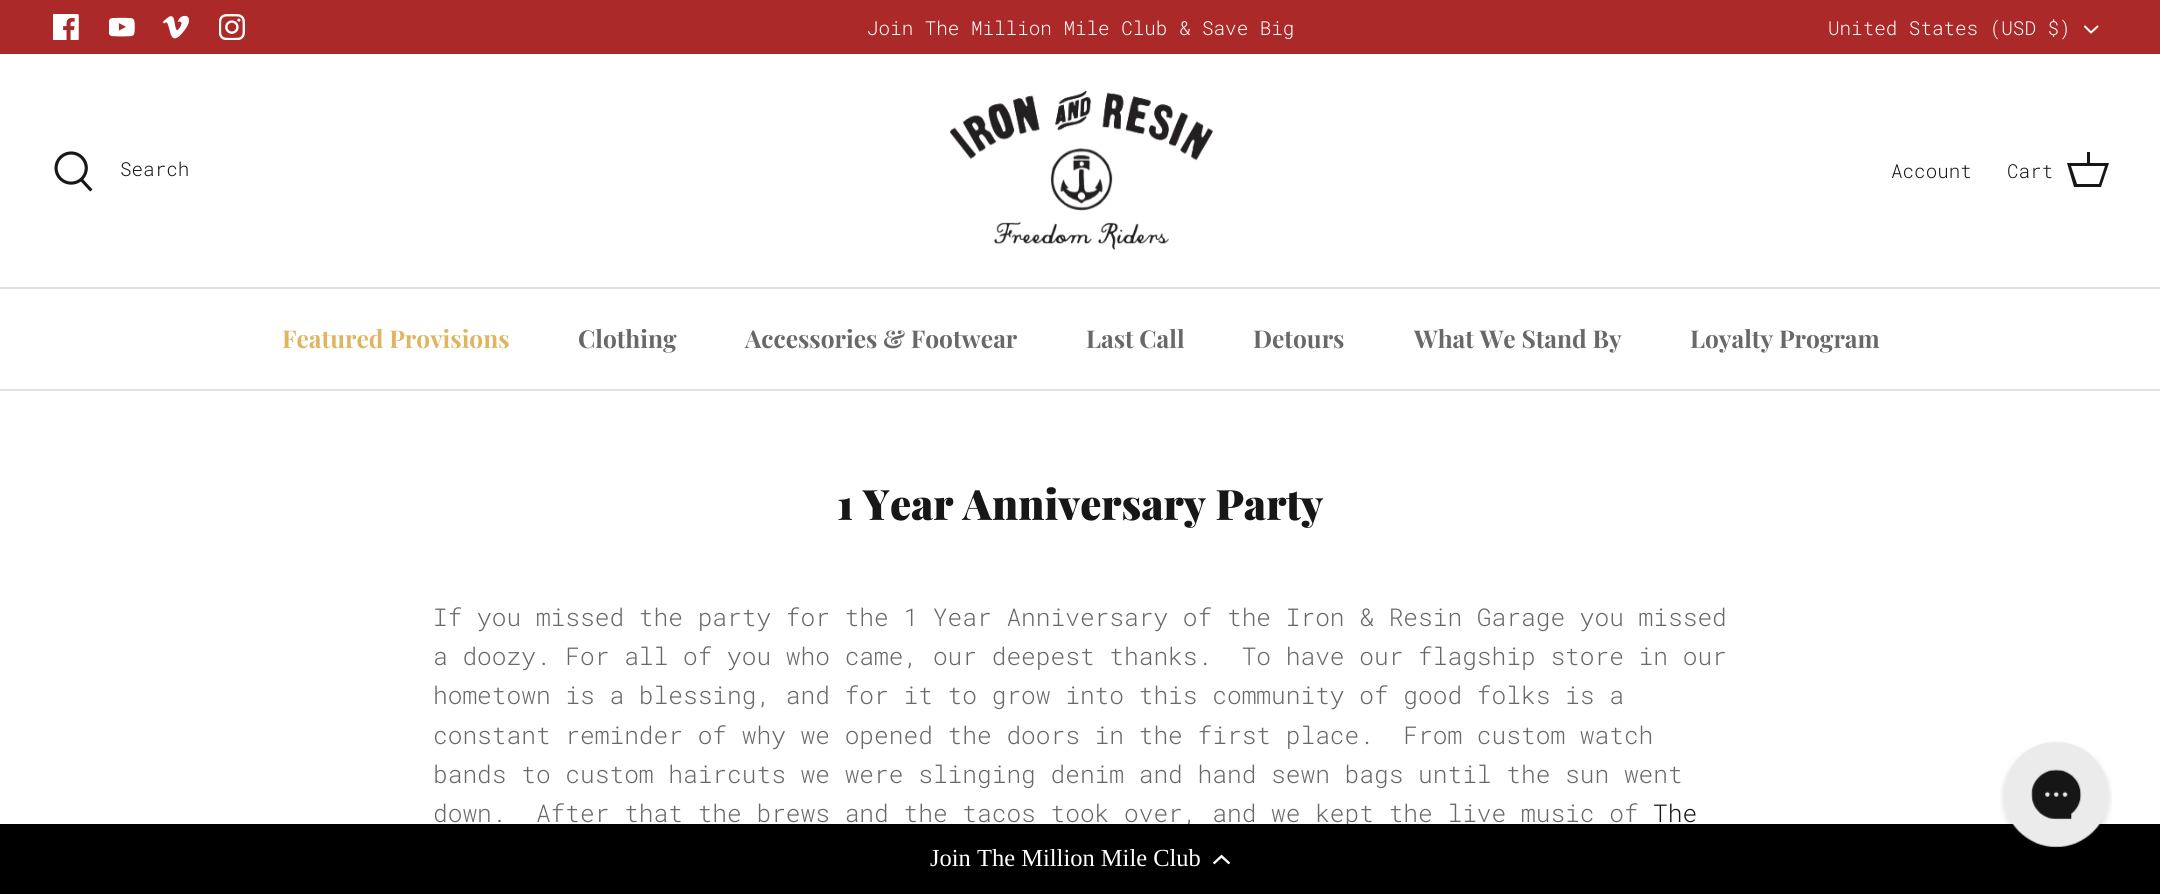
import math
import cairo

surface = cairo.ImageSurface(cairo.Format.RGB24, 2160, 894)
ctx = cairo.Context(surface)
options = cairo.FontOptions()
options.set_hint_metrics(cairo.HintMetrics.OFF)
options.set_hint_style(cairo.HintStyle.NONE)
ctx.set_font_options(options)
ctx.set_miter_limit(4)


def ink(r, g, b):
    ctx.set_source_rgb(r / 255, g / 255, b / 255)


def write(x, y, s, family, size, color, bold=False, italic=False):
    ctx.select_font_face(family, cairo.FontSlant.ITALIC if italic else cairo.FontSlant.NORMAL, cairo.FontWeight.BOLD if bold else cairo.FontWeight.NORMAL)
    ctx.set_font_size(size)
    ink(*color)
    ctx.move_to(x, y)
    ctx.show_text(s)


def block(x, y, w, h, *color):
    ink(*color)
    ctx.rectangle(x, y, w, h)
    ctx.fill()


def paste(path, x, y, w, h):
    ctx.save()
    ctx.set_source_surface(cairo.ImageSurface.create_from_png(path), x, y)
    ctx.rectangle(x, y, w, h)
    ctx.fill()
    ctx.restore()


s1 = dict(family="Roboto Mono Light", size=19.25, color=(255, 255, 255))
s2 = dict(family="Roboto Mono Light", size=19.25, color=(23, 23, 23))
s3 = dict(family="Playfair Display", size=24.5, color=(223, 181, 97), bold=True)
s4 = dict(family="Playfair Display", size=24.5, color=(103, 104, 105), bold=True)
s5 = dict(family="Playfair Display Black", size=42, color=(23, 23, 23))
s6 = dict(family="Roboto Mono Light", size=24.5, color=(103, 104, 105))
s7 = dict(family="Roboto Mono Light", size=24.5, color=(23, 23, 23))
s8 = dict(family="Liberation Serif", size=24.5, color=(255, 255, 255))

ink(255, 255, 255)
ctx.paint()
block(0, 0, 2160, 54, 171, 41, 41)
paste("pic1.png", 53, 14, 26, 26)
paste("pic2.png", 109, 17, 26, 20)
paste("pic3.png", 163, 15, 26, 24)
paste("pic4.png", 219, 14, 26, 26)
write(867, 35, "Join The Million Mile Club & Save Big", **s1)
write(1828, 35, "United States (USD $)", **s1)
ctx.new_path()
ctx.move_to(2085, 26.5)
ctx.line_to(2091, 32.5)
ctx.line_to(2097.5, 26.5)
ctx.set_line_cap(cairo.LineCap.ROUND)
ctx.set_line_join(cairo.LineJoin.ROUND)
ctx.stroke()
block(0, 287, 2160, 2, 226, 226, 226)
paste("pic5.png", 54, 151, 39, 41)
write(120, 176, "Search", **s2)
paste("pic6.png", 950, 91, 263, 159)
write(1891, 178, "Account", **s2)
write(2007, 178, "Cart", **s2)
ctx.new_path()
ctx.move_to(2087, 163)
ctx.line_to(2087, 152)
ctx.line_to(2090, 152)
ctx.line_to(2090, 163)
ctx.line_to(2109, 163)
ctx.line_to(2101, 187)
ctx.line_to(2074, 187)
ctx.line_to(2067, 163)
ctx.close_path()
ctx.move_to(2071, 166)
ctx.line_to(2077, 184)
ctx.line_to(2099, 184)
ctx.line_to(2105, 166)
ctx.close_path()
ctx.fill()
block(0, 389, 2160, 2, 226, 226, 226)
write(282, 348, "Featured Provisions", **s3)
write(578, 348, "Clothing", **s4)
write(745, 348, "Accessories & Footwear", **s4)
write(1086, 348, "Last Call", **s4)
write(1253, 348, "Detours", **s4)
write(1414, 348, "What We Stand By", **s4)
write(1690, 348, "Loyalty Program", **s4)
write(837, 520, "1 Year Anniversary Party", **s5)
write(433, 626, "If you missed the party for the 1 Year Anniversary of the Iron & Resin Garage you missed", **s6)
write(433, 665, "a doozy. For all of you who came, our deepest thanks.  To have our flagship store in our", **s6)
write(433, 704, "hometown is a blessing, and for it to grow into this community of good folks is a", **s6)
write(433, 744, "constant reminder of why we opened the doors in the first place.  From custom watch", **s6)
write(433, 783, "bands to custom haircuts we were slinging denim and hand sewn bags until the sun went", **s6)
write(433, 822, "down.  After that the brews and the tacos took over, and we kept the live music of", **s6)
write(1653, 822, "The", **s7)
block(0, 824, 2160, 70, 0, 0, 0)
paste("pic7.png", 2000, 741, 112, 107)
write(930, 866, "Join The Million Mile Club", **s8)
paste("pic8.png", 1213, 854, 17, 11)
surface.write_to_png("screenshot.png")
